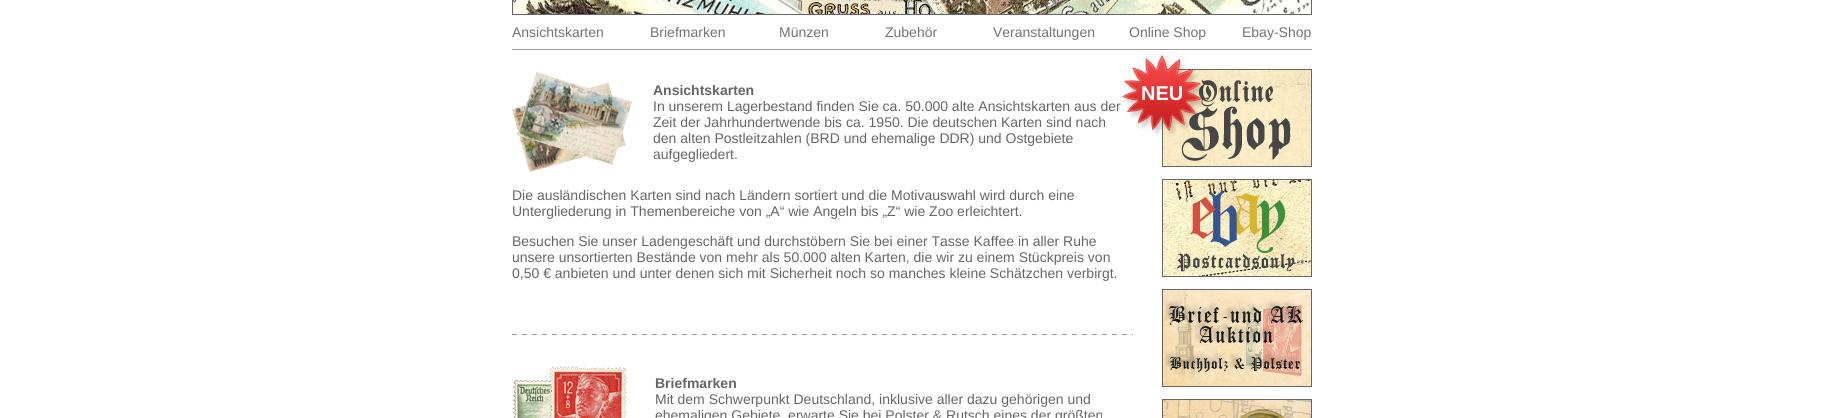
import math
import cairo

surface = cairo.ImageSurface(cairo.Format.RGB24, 1821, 418)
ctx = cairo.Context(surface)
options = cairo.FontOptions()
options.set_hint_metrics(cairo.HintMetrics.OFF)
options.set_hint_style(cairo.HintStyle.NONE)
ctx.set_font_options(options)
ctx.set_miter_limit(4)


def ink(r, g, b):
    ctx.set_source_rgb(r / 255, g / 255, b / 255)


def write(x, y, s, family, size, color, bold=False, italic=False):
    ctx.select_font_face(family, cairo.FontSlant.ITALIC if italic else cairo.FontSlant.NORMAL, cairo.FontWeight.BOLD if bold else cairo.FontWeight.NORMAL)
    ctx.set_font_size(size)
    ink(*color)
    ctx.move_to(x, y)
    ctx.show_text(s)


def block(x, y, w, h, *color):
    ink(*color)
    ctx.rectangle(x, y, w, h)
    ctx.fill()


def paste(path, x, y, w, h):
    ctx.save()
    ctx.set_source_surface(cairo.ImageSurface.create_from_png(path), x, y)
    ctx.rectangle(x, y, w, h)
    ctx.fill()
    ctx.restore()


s1 = dict(family="Liberation Sans", size=14, color=(115, 115, 115))
s2 = dict(family="Liberation Sans", size=14, color=(102, 102, 102), bold=True)
s3 = dict(family="Liberation Sans", size=14, color=(102, 102, 102))
s4 = dict(family="Liberation Sans", size=20, color=(255, 255, 255), bold=True)

ink(255, 255, 255)
ctx.paint()
paste("pic1.png", 512, 0, 800, 15)
write(512, 37, "Ansichtskarten", **s1)
write(650, 37, "Briefmarken", **s1)
write(779, 37, "Münzen", **s1)
write(885, 37, "Zubehör", **s1)
write(993, 37, "Veranstaltungen", **s1)
write(1129, 37, "Online Shop", **s1)
write(1242, 37, "Ebay-Shop", **s1)
block(512, 49, 800, 1, 153, 153, 153)
paste("pic2.png", 512, 72, 120, 100)
write(653, 95, "Ansichtskarten", **s2)
write(653, 111, "In unserem Lagerbestand finden Sie ca. 50.000 alte Ansichtskarten aus der", **s3)
write(653, 127, "Zeit der Jahrhundertwende bis ca. 1950. Die deutschen Karten sind nach", **s3)
write(653, 143, "den alten Postleitzahlen (BRD und ehemalige DDR) und Ostgebiete", **s3)
write(653, 159, "aufgegliedert.", **s3)
paste("pic3.png", 1122, 55, 190, 112)
write(1141, 100, "NEU", **s4)
write(512, 200, "Die ausländischen Karten sind nach Ländern sortiert und die Motivauswahl wird durch eine", **s3)
write(512, 216, "Untergliederung in Themenbereiche von „A“ wie Angeln bis „Z“ wie Zoo erleichtert.", **s3)
write(512, 246, "Besuchen Sie unser Ladengeschäft und durchstöbern Sie bei einer Tasse Kaffee in aller Ruhe", **s3)
write(512, 262, "unsere unsortierten Bestände von mehr als 50.000 alten Karten, die wir zu einem Stückpreis von", **s3)
write(512, 278, "0,50 € anbieten und unter denen sich mit Sicherheit noch so manches kleine Schätzchen verbirgt.", **s3)
paste("pic4.png", 1162, 179, 150, 98)
paste("pic5.png", 512, 334, 621, 1)
paste("pic6.png", 1162, 289, 150, 98)
paste("pic7.png", 512, 366, 115, 52)
write(655, 388, "Briefmarken", **s2)
write(655, 404, "Mit dem Schwerpunkt Deutschland, inklusive aller dazu gehörigen und", **s3)
write(655, 420, "ehemaligen Gebiete, erwarte Sie bei Polster & Rutsch eines der größten", **s3)
paste("pic8.png", 1162, 399, 150, 19)
surface.write_to_png("screenshot.png")
